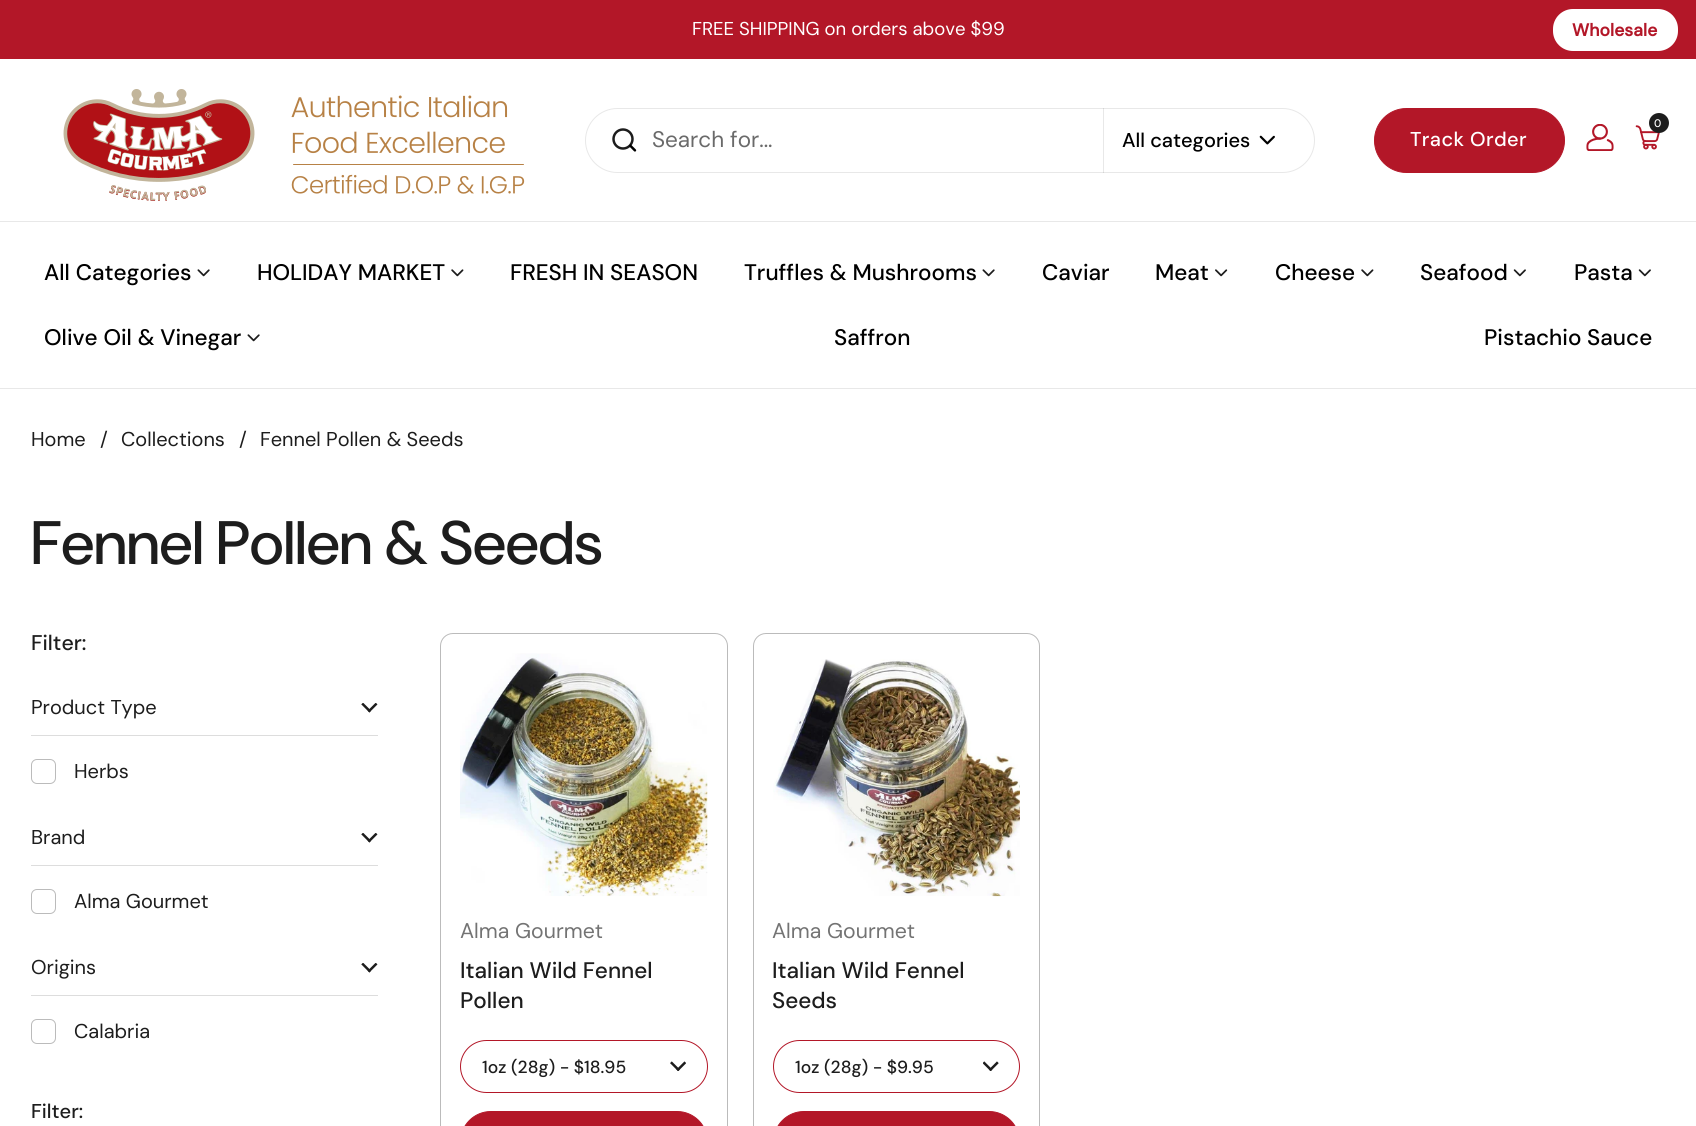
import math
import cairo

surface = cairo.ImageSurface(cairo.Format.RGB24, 1696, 1126)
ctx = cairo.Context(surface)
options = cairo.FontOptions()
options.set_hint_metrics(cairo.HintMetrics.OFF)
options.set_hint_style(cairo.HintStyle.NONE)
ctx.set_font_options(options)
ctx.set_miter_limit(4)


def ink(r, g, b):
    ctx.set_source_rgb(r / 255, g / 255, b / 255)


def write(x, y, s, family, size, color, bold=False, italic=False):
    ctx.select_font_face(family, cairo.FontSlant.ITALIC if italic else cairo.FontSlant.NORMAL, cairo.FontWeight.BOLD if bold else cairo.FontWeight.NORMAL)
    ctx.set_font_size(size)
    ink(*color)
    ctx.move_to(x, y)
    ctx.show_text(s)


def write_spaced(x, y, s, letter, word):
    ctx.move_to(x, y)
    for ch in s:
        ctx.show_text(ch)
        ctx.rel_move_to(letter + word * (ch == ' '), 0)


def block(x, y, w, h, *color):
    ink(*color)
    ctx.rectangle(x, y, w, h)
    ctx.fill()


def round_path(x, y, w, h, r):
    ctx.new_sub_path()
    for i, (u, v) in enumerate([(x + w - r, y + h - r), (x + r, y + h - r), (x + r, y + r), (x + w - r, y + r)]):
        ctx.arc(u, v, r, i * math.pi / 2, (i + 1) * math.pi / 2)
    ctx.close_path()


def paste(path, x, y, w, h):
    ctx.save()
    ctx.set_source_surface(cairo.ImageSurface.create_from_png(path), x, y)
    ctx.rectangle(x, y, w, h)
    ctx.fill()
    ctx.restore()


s1 = dict(family="DM Sans", size=18.6, color=(255, 255, 255))
s2 = dict(family="DM Sans", size=17.5, color=(179, 23, 40), bold=True)
s3 = dict(family="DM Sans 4", size=22.5, color=(106, 106, 106))
s4 = dict(family="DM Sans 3 Medium", size=20, color=(0, 0, 0))
s5 = dict(family="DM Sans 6 Medium", size=11, color=(255, 255, 255))
s6 = dict(family="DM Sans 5 Medium", size=22.5, color=(0, 0, 0))
s7 = dict(family="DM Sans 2", size=20, color=(29, 29, 29))
s8 = dict(family="DM Sans Medium", size=61.25, color=(29, 29, 29))
s9 = dict(family="DM Sans 2 Medium", size=21.25, color=(29, 29, 29))
s10 = dict(family="DM Sans 3 Medium", size=20, color=(29, 29, 29))
s11 = dict(family="DM Sans 3", size=21.25, color=(115, 115, 115))
s12 = dict(family="DM Sans 5 Medium", size=22.5, color=(29, 29, 29))
s13 = dict(family="DM Sans 4 Medium", size=17.5, color=(29, 29, 29))

ink(255, 255, 255)
ctx.paint()
block(0, 0, 1696, 59, 179, 23, 40)
write(692, 35, "FREE SHIPPING on orders above $99", **s1)
round_path(1553, 9, 125, 42, 20)
ctx.fill()
write(1572, 36, "Wholesale", **s2)
block(0, 221, 1696, 1, 232, 232, 232)
paste("pic1.png", 63, 89, 192, 112)
paste("pic2.png", 291, 95, 234, 99)
round_path(585.5, 108.5, 729, 64, 32)
ctx.set_line_width(1)
ctx.stroke()
paste("pic3.png", 612, 128, 25, 24)
write(652, 147, "Search for...", **s3)
paste("pic4.png", 1259, 135, 16, 10)
ctx.set_source_rgba(0.114, 0.114, 0.114, 0.1)
ctx.rectangle(1103, 108, 1, 65)
ctx.fill()
write(1122, 147, "All categories", **s4)
ink(179, 23, 40)
round_path(1374.5, 108.5, 190, 64, 32)
ctx.fill_preserve()
ctx.stroke()
ink(255, 255, 255)
write_spaced(1410, 146, "Track Order", 0.4, 0)
paste("pic5.png", 1586, 124, 28, 27)
paste("pic6.png", 1635, 125, 25, 25)
ink(29, 29, 29)
ctx.arc(1659, 123, 10, 0, 2 * math.pi)
ctx.fill()
write(1654, 127, "0", **s5)
block(0, 388, 1696, 1, 232, 232, 232)
write(44, 280, "All Categories", **s6)
paste("pic7.png", 197, 269, 13, 8)
write(257, 280, "HOLIDAY MARKET", **s6)
paste("pic8.png", 451, 269, 13, 8)
write(510, 280, "FRESH IN SEASON", **s6)
write(744, 280, "Truffles & Mushrooms", **s6)
paste("pic7.png", 982, 269, 13, 8)
write(1042, 280, "Caviar", **s6)
write(1155, 280, "Meat", **s6)
paste("pic9.png", 1215, 269, 13, 8)
write(1275, 280, "Cheese", **s6)
paste("pic8.png", 1361, 269, 13, 8)
write(1420, 280, "Seafood", **s6)
paste("pic10.png", 1513, 269, 13, 8)
write(1574, 280, "Pasta", **s6)
paste("pic10.png", 1638, 269, 13, 8)
write(44, 345, "Olive Oil & Vinegar", **s6)
paste("pic7.png", 247, 334, 13, 8)
write(834, 345, "Saffron", **s6)
write(1484, 345, "Pistachio Sauce", **s6)
write(31, 446, "Home", **s7)
write(100, 446, "/", **s7)
write(121, 446, "Collections", **s7)
write(239, 446, "/", **s7)
write(260, 446, "Fennel Pollen & Seeds", **s7)
write(31, 564, "Fennel Pollen & Seeds", **s8)
write(31, 650, "Filter:", **s9)
paste("pic11.png", 361, 703, 17, 10)
block(31, 735, 347, 1, 221, 221, 221)
write(31, 714, "Product Type", **s7)
round_path(31.5, 759.5, 24, 24, 5.5)
ink(187, 187, 187)
ctx.stroke()
write(74, 778, "Herbs", **s7)
paste("pic11.png", 361, 833, 17, 10)
block(31, 865, 347, 1, 221, 221, 221)
write(31, 844, "Brand", **s7)
round_path(31.5, 889.5, 24, 24, 5.5)
ink(187, 187, 187)
ctx.stroke()
write(74, 908, "Alma Gourmet", **s7)
paste("pic11.png", 361, 963, 17, 10)
block(31, 995, 347, 1, 221, 221, 221)
write(31, 974, "Origins", **s7)
round_path(31.5, 1019.5, 24, 24, 5.5)
ink(187, 187, 187)
ctx.stroke()
write(74, 1038, "Calabria", **s7)
write(31, 1118, "Filter:", **s10)
round_path(440.5, 633.5, 287, 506, 12.5)
ink(187, 187, 187)
ctx.stroke()
paste("pic12.png", 460, 653, 248, 244)
write(460, 938, "Alma Gourmet", **s11)
write(460, 978, "Italian Wild Fennel", **s12)
write(460, 1008, "Pollen", **s12)
paste("pic13.png", 670, 1061, 16, 10)
round_path(460.5, 1040.5, 247, 52, 26)
ink(179, 23, 40)
ctx.stroke()
write(482, 1073, "1oz (28g) - $18.95", **s13)
ink(179, 23, 40)
round_path(460.5, 1111.5, 247, 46, 30.5)
ctx.fill_preserve()
ctx.stroke()
round_path(753.5, 633.5, 286, 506, 12.5)
ink(187, 187, 187)
ctx.stroke()
paste("pic14.png", 773, 659, 247, 238)
write(772, 938, "Alma Gourmet", **s11)
write(772, 978, "Italian Wild Fennel", **s12)
write(772, 1008, "Seeds", **s12)
paste("pic15.png", 983, 1061, 16, 10)
round_path(773.5, 1040.5, 246, 52, 26)
ink(179, 23, 40)
ctx.stroke()
write(795, 1073, "1oz (28g) - $9.95", **s13)
ink(179, 23, 40)
round_path(773.5, 1111.5, 246, 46, 30.5)
ctx.fill_preserve()
ctx.stroke()
surface.write_to_png("screenshot.png")
